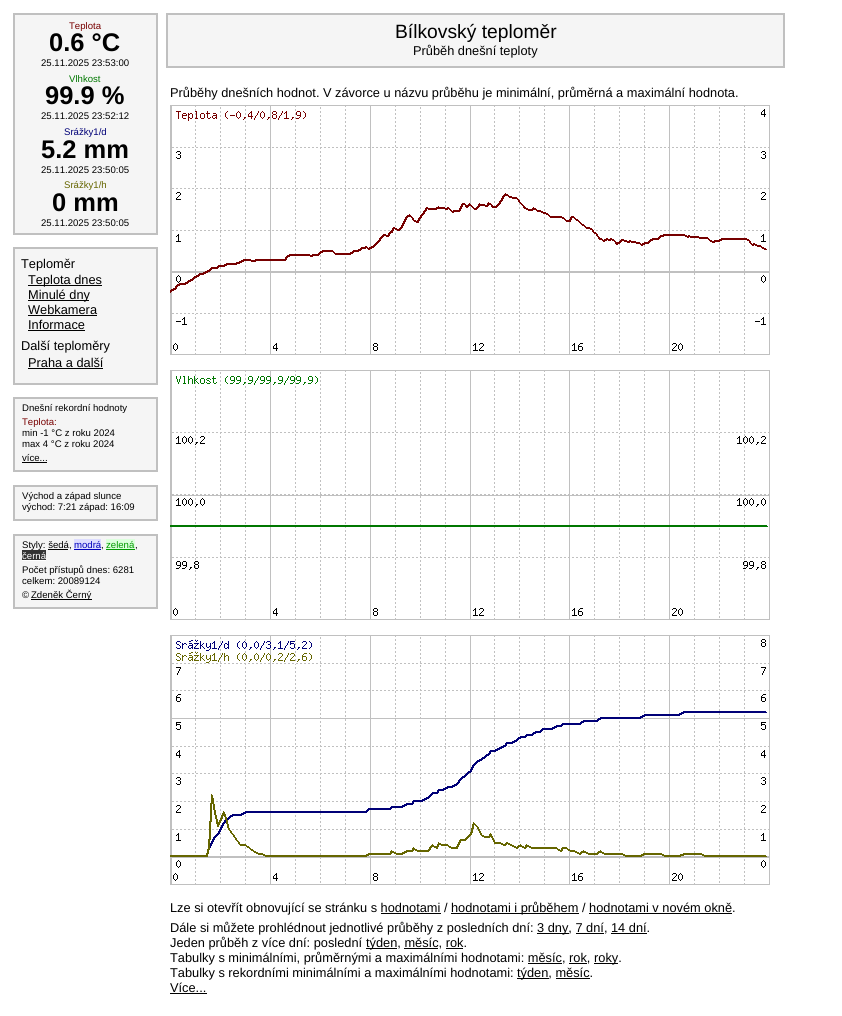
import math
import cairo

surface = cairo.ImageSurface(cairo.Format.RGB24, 842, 1016)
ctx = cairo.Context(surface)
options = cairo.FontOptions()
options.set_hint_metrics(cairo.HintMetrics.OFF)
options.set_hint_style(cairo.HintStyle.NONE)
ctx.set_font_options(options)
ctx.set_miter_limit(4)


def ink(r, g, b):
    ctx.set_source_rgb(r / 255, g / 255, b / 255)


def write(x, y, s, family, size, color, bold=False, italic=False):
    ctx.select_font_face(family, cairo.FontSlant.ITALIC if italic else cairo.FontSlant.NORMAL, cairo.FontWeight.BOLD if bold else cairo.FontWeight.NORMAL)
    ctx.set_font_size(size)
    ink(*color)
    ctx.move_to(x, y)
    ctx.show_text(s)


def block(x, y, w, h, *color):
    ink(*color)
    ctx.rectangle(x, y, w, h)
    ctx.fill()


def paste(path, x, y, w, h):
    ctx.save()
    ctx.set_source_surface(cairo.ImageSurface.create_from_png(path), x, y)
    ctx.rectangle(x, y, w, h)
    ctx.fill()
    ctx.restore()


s1 = dict(family="Liberation Sans", size=9.6, color=(119, 0, 0))
s2 = dict(family="Liberation Sans", size=25.5, color=(0, 0, 0), bold=True)
s3 = dict(family="Liberation Sans", size=9.6, color=(0, 0, 0))
s4 = dict(family="Liberation Sans", size=9.6, color=(0, 119, 0))
s5 = dict(family="Liberation Sans", size=9.6, color=(0, 0, 119))
s6 = dict(family="Liberation Sans", size=9.6, color=(102, 102, 0))
s7 = dict(family="Liberation Sans", size=19.25, color=(0, 0, 0))
s8 = dict(family="Liberation Sans", size=12.8, color=(0, 0, 0))
s9 = dict(family="Liberation Sans", size=9.6, color=(0, 0, 187))
s10 = dict(family="Liberation Sans", size=9.6, color=(0, 153, 0))
s11 = dict(family="Liberation Sans", size=9.6, color=(255, 255, 255))

ink(255, 255, 255)
ctx.paint()
ink(245, 245, 245)
ctx.rectangle(14, 14, 143, 220)
ctx.fill_preserve()
ink(192, 192, 192)
ctx.stroke()
write(69, 29, "Teplota", **s1)
write(49, 51, "0.6 °C", **s2)
write(41, 66, "25.11.2025 23:53:00", **s3)
write(69, 82, "Vlhkost", **s4)
write(45, 104, "99.9 %", **s2)
write(41, 119, "25.11.2025 23:52:12", **s3)
write(64, 135, "Srážky1/d", **s5)
write(41, 158, "5.2 mm", **s2)
write(41, 173, "25.11.2025 23:50:05", **s3)
write(64, 188, "Srážky1/h", **s6)
write(52, 211, "0 mm", **s2)
write(41, 226, "25.11.2025 23:50:05", **s3)
ink(245, 245, 245)
ctx.rectangle(167, 14, 617, 53)
ctx.fill_preserve()
ink(192, 192, 192)
ctx.stroke()
write(395, 38, "Bílkovský teploměr", **s7)
write(413, 55, "Průběh dnešní teploty", **s8)
write(170, 97, "Průběhy dnešních hodnot. V závorce u názvu průběhu je minimální, průměrná a maximální hodnota.", **s8)
paste("pic1.png", 170, 105, 600, 250)
paste("pic2.png", 170, 370, 600, 250)
paste("pic3.png", 170, 635, 600, 250)
write(170, 912, "Lze si otevřít obnovující se stránku s hodnotami /", **s8)
block(451, 913, 128, 1, 0, 0, 0)
write(451, 912, "hodnotami i průběhem / hodnotami v novém okně.", **s8)
block(381, 913, 60, 1, 0, 0, 0)
block(589, 913, 143, 1, 0, 0, 0)
write(170, 932, "Dále si můžete prohlédnout jednotlivé průběhy z posledních dní:", **s8)
block(537, 933, 32, 1, 0, 0, 0)
write(537, 932, "3 dny, 7 dní, 14 dní.", **s8)
block(576, 933, 28, 1, 0, 0, 0)
block(611, 933, 36, 1, 0, 0, 0)
write(170, 947, "Jeden průběh z více dní: poslední", **s8)
block(366, 948, 31, 1, 0, 0, 0)
write(366, 947, "týden, měsíc, rok.", **s8)
block(404, 948, 34, 1, 0, 0, 0)
block(446, 948, 17, 1, 0, 0, 0)
write(170, 962, "Tabulky s minimálními, průměrnými a maximálními hodnotami: měsíc, rok,", **s8)
block(594, 963, 24, 1, 0, 0, 0)
write(594, 962, "roky.", **s8)
block(528, 963, 34, 1, 0, 0, 0)
block(569, 963, 18, 1, 0, 0, 0)
write(170, 977, "Tabulky s rekordními minimálními a maximálními hodnotami:", **s8)
block(517, 978, 32, 1, 0, 0, 0)
write(517, 977, "týden, měsíc.", **s8)
block(556, 978, 34, 1, 0, 0, 0)
write(170, 992, "Více...", **s8)
block(170, 993, 37, 1, 0, 0, 0)
ink(245, 245, 245)
ctx.rectangle(14, 248, 143, 136)
ctx.fill_preserve()
ink(192, 192, 192)
ctx.stroke()
write(21, 268, "Teploměr", **s8)
block(28, 285, 74, 1, 0, 0, 0)
write(28, 284, "Teplota dnes", **s8)
block(28, 300, 61, 1, 0, 0, 0)
write(28, 299, "Minulé dny", **s8)
write(28, 314, "Webkamera", **s8)
block(28, 315, 69, 1, 0, 0, 0)
write(28, 329, "Informace", **s8)
block(28, 330, 57, 1, 0, 0, 0)
write(21, 350, "Další teploměry", **s8)
write(28, 367, "Praha a další", **s8)
block(28, 368, 75, 1, 0, 0, 0)
ink(245, 245, 245)
ctx.rectangle(14, 398, 143, 73)
ctx.fill_preserve()
ink(192, 192, 192)
ctx.stroke()
write(22, 411, "Dnešní rekordní hodnoty", **s3)
write(22, 425, "Teplota:", **s1)
write(22, 436, "min -1 °C z roku 2024", **s3)
write(22, 447, "max 4 °C z roku 2024", **s3)
write(22, 461, "více...", **s3)
block(22, 462, 25, 1, 0, 0, 0)
ink(245, 245, 245)
ctx.rectangle(14, 486, 143, 34)
ctx.fill_preserve()
ink(192, 192, 192)
ctx.stroke()
write(22, 499, "Východ a západ slunce", **s3)
write(22, 510, "východ: 7:21 západ: 16:09", **s3)
ink(245, 245, 245)
ctx.rectangle(14, 535, 143, 73)
ctx.fill_preserve()
ink(192, 192, 192)
ctx.stroke()
write(22, 548, "Styly: šedá,", **s3)
block(74, 539, 27, 10, 221, 221, 255)
write(74, 548, "modrá", **s9)
block(74, 549, 27, 1, 0, 0, 187)
block(106, 539, 29, 10, 221, 255, 221)
write(106, 548, "zelená", **s10)
block(106, 549, 29, 1, 0, 153, 0)
block(48, 549, 20, 1, 0, 0, 0)
write(101, 548, ",", **s3)
write(135, 548, ",", **s3)
block(22, 550, 24, 10, 51, 51, 51)
write(22, 559, "černá", **s11)
block(22, 560, 24, 1, 255, 255, 255)
write(22, 573, "Počet přístupů dnes: 6281", **s3)
write(22, 584, "celkem: 20089124", **s3)
write(22, 598, "©", **s3)
block(31, 599, 61, 1, 0, 0, 0)
write(31, 598, "Zdeněk Černý", **s3)
surface.write_to_png("screenshot.png")
